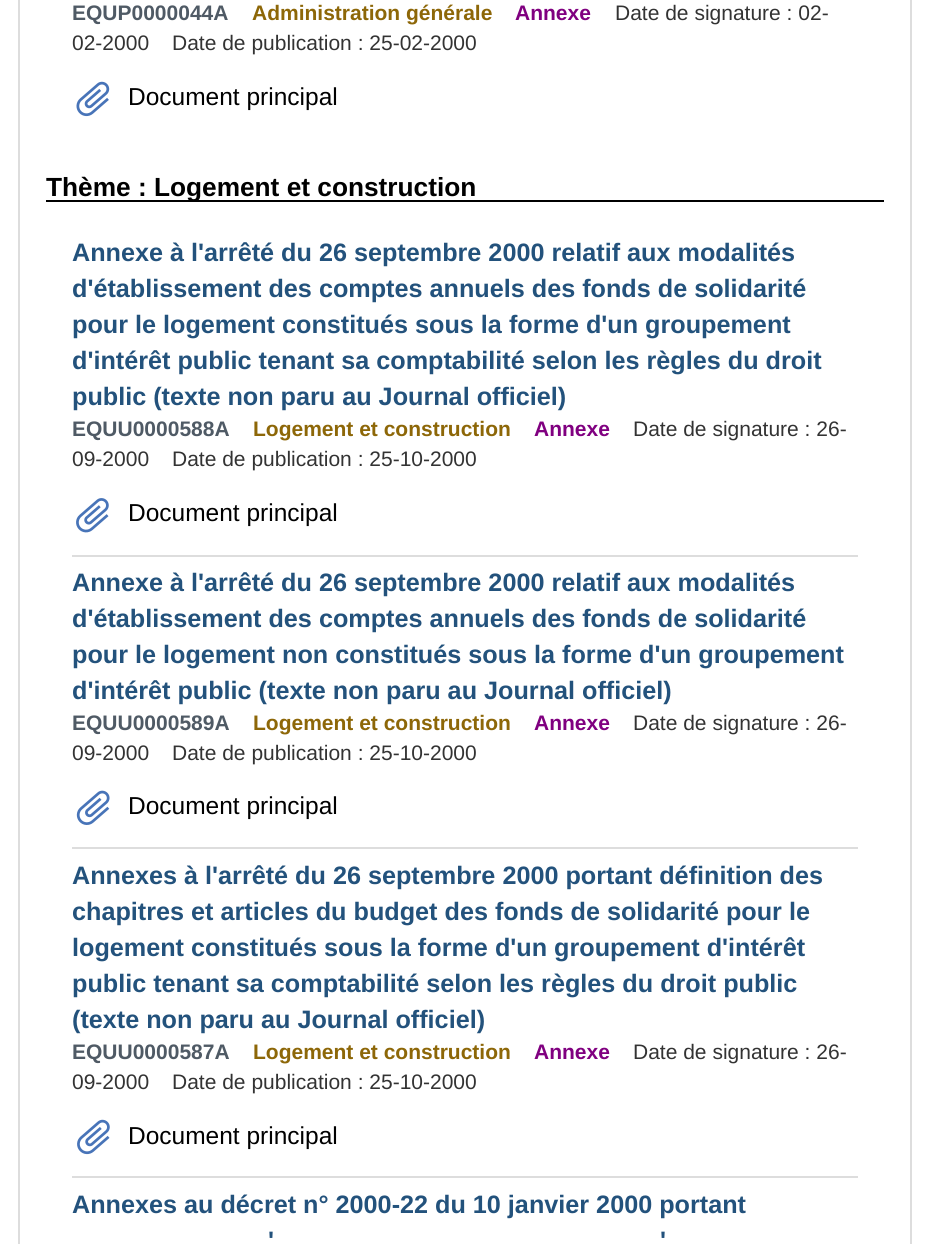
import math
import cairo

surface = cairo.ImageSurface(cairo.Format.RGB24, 928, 1244)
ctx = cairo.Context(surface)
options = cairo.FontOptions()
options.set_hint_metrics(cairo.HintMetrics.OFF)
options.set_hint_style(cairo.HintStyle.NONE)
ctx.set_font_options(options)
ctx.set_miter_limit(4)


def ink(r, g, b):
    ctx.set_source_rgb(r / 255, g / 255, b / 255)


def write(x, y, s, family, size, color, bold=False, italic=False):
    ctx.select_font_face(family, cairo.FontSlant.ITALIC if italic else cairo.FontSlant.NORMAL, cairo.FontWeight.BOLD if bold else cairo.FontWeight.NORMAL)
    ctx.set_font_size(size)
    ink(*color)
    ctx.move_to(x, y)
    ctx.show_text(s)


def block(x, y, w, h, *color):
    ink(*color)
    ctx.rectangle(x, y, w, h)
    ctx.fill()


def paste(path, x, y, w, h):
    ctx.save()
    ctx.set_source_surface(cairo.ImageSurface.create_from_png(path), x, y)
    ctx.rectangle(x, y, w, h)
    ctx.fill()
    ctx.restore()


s1 = dict(family="Liberation Sans", size=21, color=(79, 90, 101), bold=True)
s2 = dict(family="Liberation Sans", size=21, color=(141, 103, 8), bold=True)
s3 = dict(family="Liberation Sans", size=21, color=(128, 0, 128), bold=True)
s4 = dict(family="Liberation Sans", size=21, color=(51, 51, 51))
s5 = dict(family="Liberation Sans", size=24.5, color=(0, 0, 0))
s6 = dict(family="Liberation Sans", size=26.25, color=(0, 0, 0), bold=True)
s7 = dict(family="Liberation Sans", size=25.2, color=(35, 82, 124), bold=True)

ink(255, 255, 255)
ctx.paint()
ctx.rectangle(19, -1, 892, 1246)
ink(221, 221, 221)
ctx.stroke()
write(72, 20, "EQUP0000044A", **s1)
write(252, 20, "Administration générale", **s2)
write(515, 20, "Annexe", **s3)
write(615, 20, "Date de signature : 02-", **s4)
write(72, 50, "02-2000", **s4)
write(172, 50, "Date de publication : 25-02-2000", **s4)
paste("pic1.png", 76, 81, 34, 36)
write(128, 105, "Document principal", **s5)
block(46, 200, 838, 2, 0, 0, 0)
write(46, 196, "Thème : Logement et construction", **s6)
write(72, 261, "Annexe à l'arrêté du 26 septembre 2000 relatif aux modalités", **s7)
write(72, 297, "d'établissement des comptes annuels des fonds de solidarité", **s7)
write(72, 333, "pour le logement constitués sous la forme d'un groupement", **s7)
write(72, 369, "d'intérêt public tenant sa comptabilité selon les règles du droit", **s7)
write(72, 405, "public (texte non paru au Journal officiel)", **s7)
write(72, 436, "EQUU0000588A", **s1)
write(253, 436, "Logement et construction", **s2)
write(534, 436, "Annexe", **s3)
write(633, 436, "Date de signature : 26-", **s4)
write(72, 466, "09-2000", **s4)
write(172, 466, "Date de publication : 25-10-2000", **s4)
paste("pic2.png", 76, 498, 33, 35)
write(128, 521, "Document principal", **s5)
block(72, 555, 786, 2, 221, 221, 221)
write(72, 591, "Annexe à l'arrêté du 26 septembre 2000 relatif aux modalités", **s7)
write(72, 627, "d'établissement des comptes annuels des fonds de solidarité", **s7)
write(72, 663, "pour le logement non constitués sous la forme d'un groupement", **s7)
write(72, 699, "d'intérêt public (texte non paru au Journal officiel)", **s7)
write(72, 730, "EQUU0000589A", **s1)
write(253, 730, "Logement et construction", **s2)
write(534, 730, "Annexe", **s3)
write(633, 730, "Date de signature : 26-", **s4)
write(72, 760, "09-2000", **s4)
write(172, 760, "Date de publication : 25-10-2000", **s4)
paste("pic3.png", 76, 790, 34, 35)
write(128, 814, "Document principal", **s5)
block(72, 847, 786, 2, 221, 221, 221)
write(72, 884, "Annexes à l'arrêté du 26 septembre 2000 portant définition des", **s7)
write(72, 920, "chapitres et articles du budget des fonds de solidarité pour le", **s7)
write(72, 956, "logement constitués sous la forme d'un groupement d'intérêt", **s7)
write(72, 992, "public tenant sa comptabilité selon les règles du droit public", **s7)
write(72, 1028, "(texte non paru au Journal officiel)", **s7)
write(72, 1059, "EQUU0000587A", **s1)
write(253, 1059, "Logement et construction", **s2)
write(534, 1059, "Annexe", **s3)
write(633, 1059, "Date de signature : 26-", **s4)
write(72, 1089, "09-2000", **s4)
write(172, 1089, "Date de publication : 25-10-2000", **s4)
paste("pic4.png", 77, 1119, 33, 36)
write(128, 1144, "Document principal", **s5)
block(72, 1176, 786, 2, 221, 221, 221)
write(72, 1213, "Annexes au décret n° 2000-22 du 10 janvier 2000 portant", **s7)
write(268, 1249, "'", **s7)
write(660, 1249, "'", **s7)
surface.write_to_png("screenshot.png")
